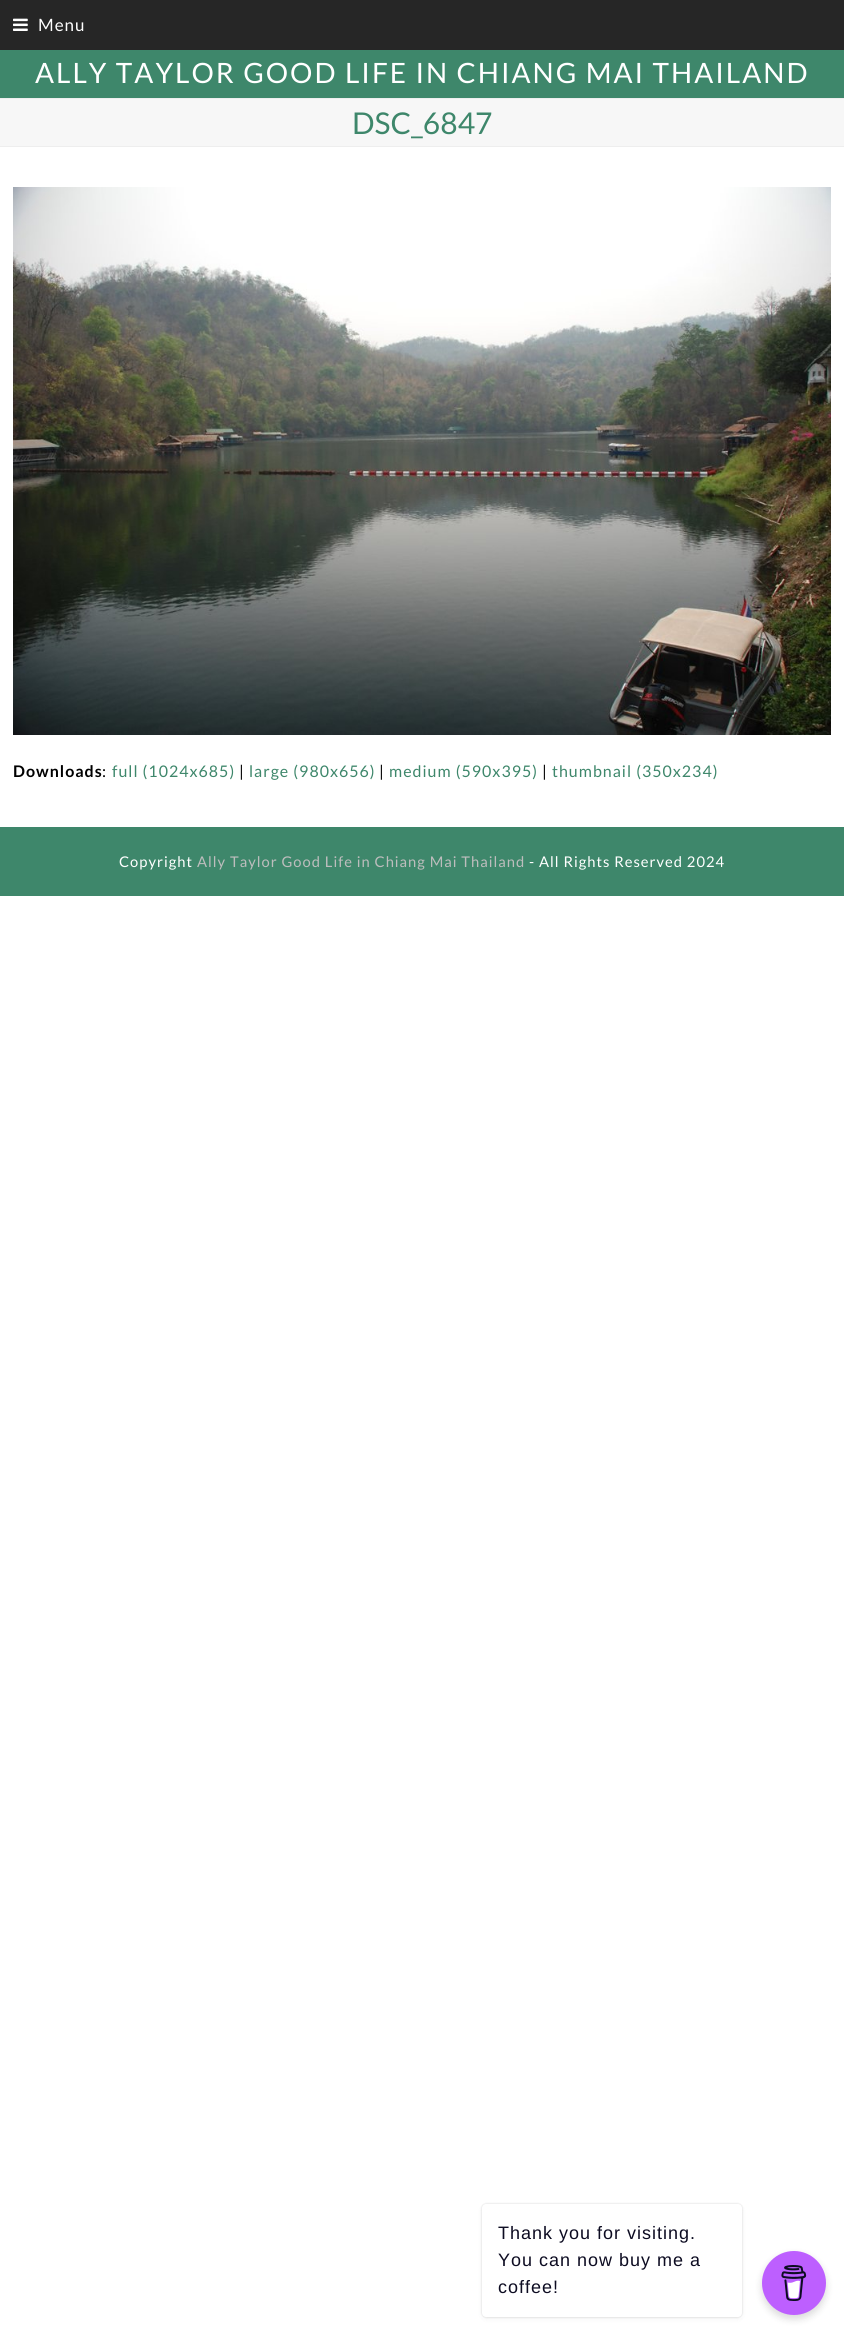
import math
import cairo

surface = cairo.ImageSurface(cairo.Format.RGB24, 844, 2333)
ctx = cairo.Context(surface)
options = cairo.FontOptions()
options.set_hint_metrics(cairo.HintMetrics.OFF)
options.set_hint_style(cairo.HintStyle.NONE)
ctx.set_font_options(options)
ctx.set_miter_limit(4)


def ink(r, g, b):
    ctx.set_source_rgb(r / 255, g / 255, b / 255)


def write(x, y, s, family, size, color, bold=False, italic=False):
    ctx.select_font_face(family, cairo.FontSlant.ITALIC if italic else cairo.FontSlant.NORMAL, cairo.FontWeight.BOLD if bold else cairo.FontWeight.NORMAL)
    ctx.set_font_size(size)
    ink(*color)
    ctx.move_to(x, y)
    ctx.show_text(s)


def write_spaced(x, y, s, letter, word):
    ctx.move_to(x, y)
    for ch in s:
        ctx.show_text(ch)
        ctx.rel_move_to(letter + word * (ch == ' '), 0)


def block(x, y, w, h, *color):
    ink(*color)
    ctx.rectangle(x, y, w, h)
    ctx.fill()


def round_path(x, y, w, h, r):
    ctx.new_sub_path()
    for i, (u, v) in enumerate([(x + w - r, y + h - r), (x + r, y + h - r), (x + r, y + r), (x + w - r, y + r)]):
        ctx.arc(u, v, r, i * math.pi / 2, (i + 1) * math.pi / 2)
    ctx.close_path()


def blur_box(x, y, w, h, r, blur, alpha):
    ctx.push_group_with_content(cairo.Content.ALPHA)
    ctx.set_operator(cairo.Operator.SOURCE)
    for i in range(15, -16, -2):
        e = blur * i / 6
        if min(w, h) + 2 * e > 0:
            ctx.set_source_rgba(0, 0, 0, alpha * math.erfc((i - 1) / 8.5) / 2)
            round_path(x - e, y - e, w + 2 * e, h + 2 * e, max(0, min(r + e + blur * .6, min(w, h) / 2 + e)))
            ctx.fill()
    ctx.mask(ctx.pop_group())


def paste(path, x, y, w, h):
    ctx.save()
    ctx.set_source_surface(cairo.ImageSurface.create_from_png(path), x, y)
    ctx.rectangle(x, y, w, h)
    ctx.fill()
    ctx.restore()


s1 = dict(family="Lato", size=30, color=(62, 135, 107))

ink(255, 255, 255)
ctx.paint()
block(0, 0, 844, 50, 38, 38, 38)
paste("pic1.png", 13, 18, 15, 13)
ctx.select_font_face("Lato")
ctx.set_font_size(17)
ink(255, 255, 255)
write_spaced(38, 31, "Menu", 1, 0)
block(0, 50, 844, 48, 62, 135, 107)
ctx.set_font_size(28)
ink(255, 255, 255)
write_spaced(35, 83, "ALLY TAYLOR GOOD LIFE IN CHIANG MAI THAILAND", 2, 0)
block(0, 99, 844, 47, 247, 247, 247)
block(0, 98, 844, 1, 238, 238, 238)
block(0, 146, 844, 1, 238, 238, 238)
write(352, 134, "DSC_6847", **s1)
paste("pic2.png", 13, 187, 818, 548)
ctx.select_font_face("Lato", cairo.FontSlant.NORMAL, cairo.FontWeight.BOLD)
ctx.set_font_size(16)
ink(0, 0, 0)
write_spaced(13, 777, "Downloads", 1, 0)
ctx.select_font_face("Lato")
write_spaced(102, 777, ":", 1, 0)
ink(62, 135, 107)
write_spaced(112, 777, "full (1024x685)", 1, 0)
ink(0, 0, 0)
write_spaced(239, 777, "|", 1, 0)
ink(62, 135, 107)
write_spaced(249, 777, "large (980x656)", 1, 0)
ink(0, 0, 0)
write_spaced(379, 777, "|", 1, 0)
ink(62, 135, 107)
write_spaced(389, 777, "medium (590x395)", 1, 0)
ink(0, 0, 0)
write_spaced(542, 777, "|", 1, 0)
ink(62, 135, 107)
write_spaced(552, 777, "thumbnail (350x234)", 1, 0)
block(0, 827, 844, 69, 62, 135, 107)
ctx.set_font_size(14.75)
ink(255, 255, 255)
write_spaced(119, 867, "Copyright", 1, 0)
ink(189, 189, 189)
write_spaced(197, 867, "Ally Taylor Good Life in Chiang Mai Thailand", 1, 0)
ink(255, 255, 255)
write_spaced(529, 867, "- All Rights Reserved 2024", 1, 0)
ink(0, 0, 0)
blur_box(482, 2204, 260, 113, 4, 1, 0.15)
blur_box(482, 2206, 260, 113, 4, 2.5, 0.05)
ink(255, 255, 255)
round_path(482, 2204, 260, 113, 4)
ctx.fill()
ctx.select_font_face("Liberation Sans")
ctx.set_font_size(18)
ink(13, 12, 34)
write_spaced(498, 2239, "Thank you for visiting.", 1, 0)
write_spaced(498, 2266, "You can now buy me a", 1, 0)
write_spaced(498, 2293, "coffee!", 1, 0)
ink(0, 0, 0)
blur_box(762, 2255, 64, 64, 32, 4, 0.15)
ink(189, 95, 255)
ctx.arc(794, 2283, 32, 0, 2 * math.pi)
ctx.fill()
paste("pic3.png", 781, 2265, 26, 36)
surface.write_to_png("screenshot.png")
